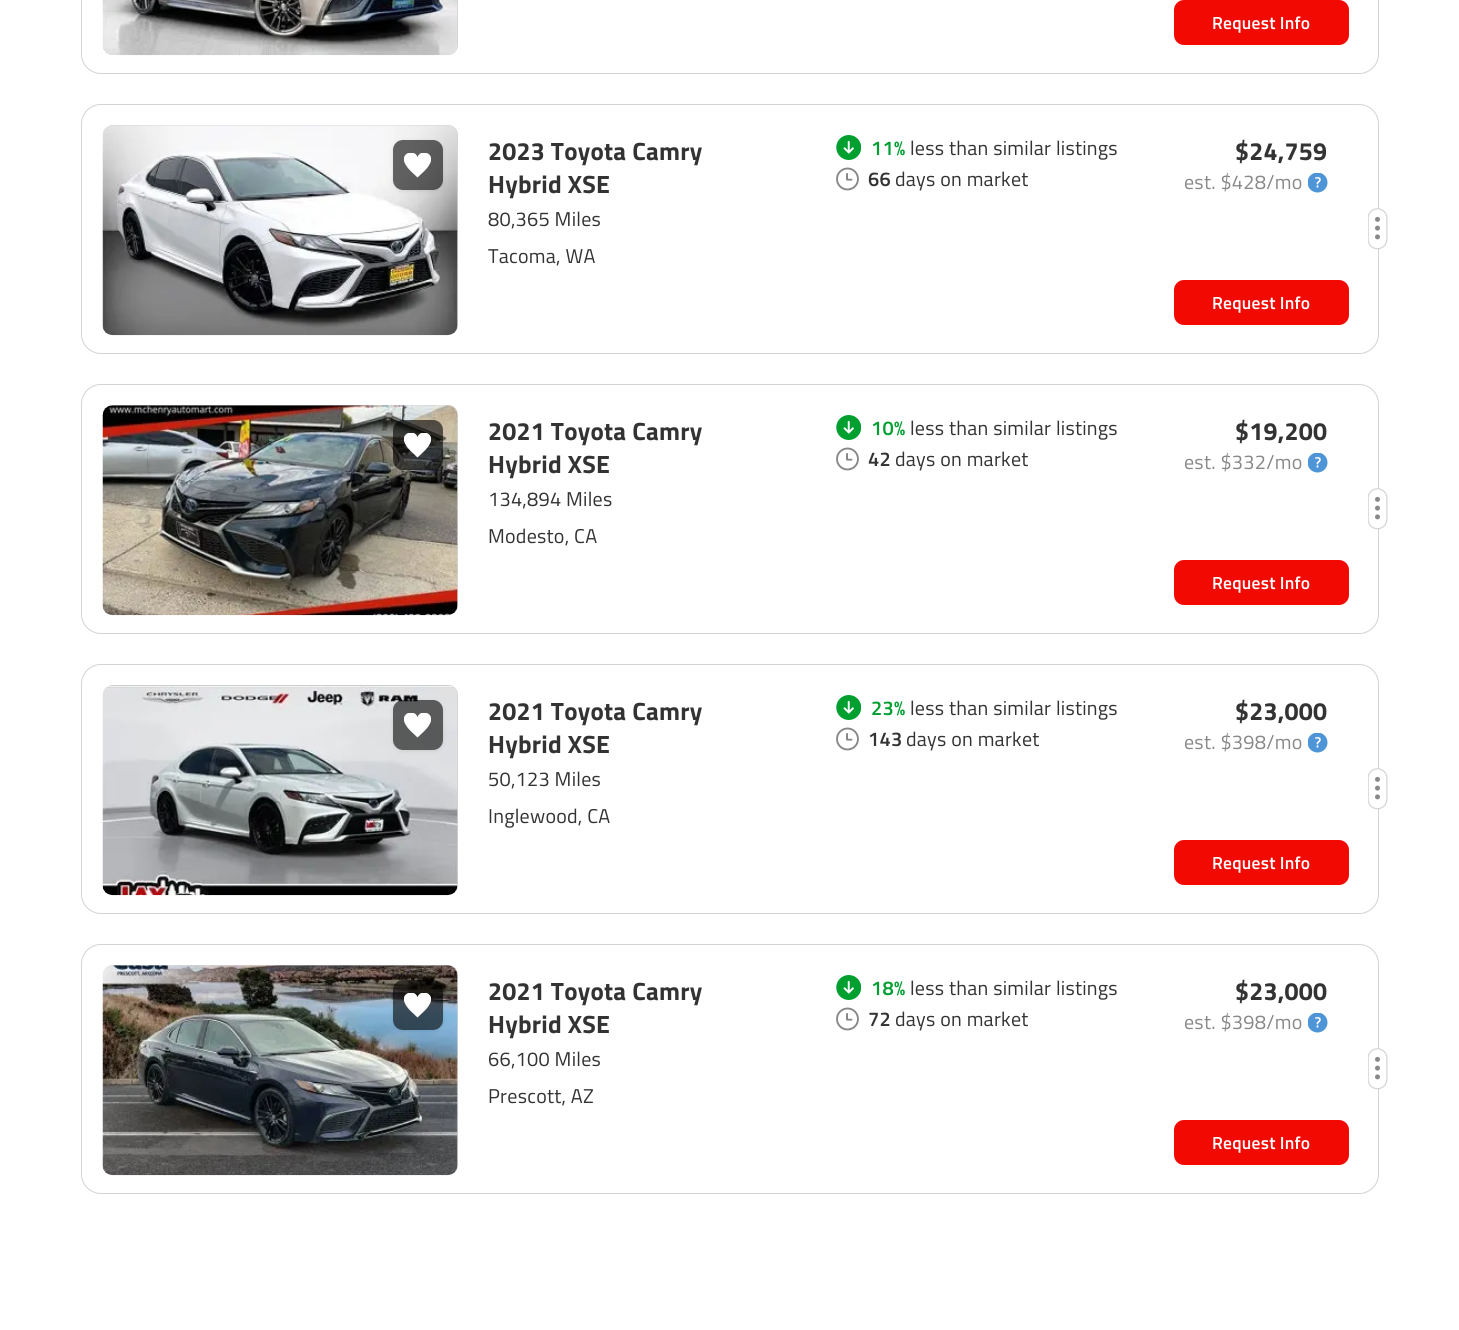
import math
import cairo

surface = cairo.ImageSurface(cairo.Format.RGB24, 1459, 1330)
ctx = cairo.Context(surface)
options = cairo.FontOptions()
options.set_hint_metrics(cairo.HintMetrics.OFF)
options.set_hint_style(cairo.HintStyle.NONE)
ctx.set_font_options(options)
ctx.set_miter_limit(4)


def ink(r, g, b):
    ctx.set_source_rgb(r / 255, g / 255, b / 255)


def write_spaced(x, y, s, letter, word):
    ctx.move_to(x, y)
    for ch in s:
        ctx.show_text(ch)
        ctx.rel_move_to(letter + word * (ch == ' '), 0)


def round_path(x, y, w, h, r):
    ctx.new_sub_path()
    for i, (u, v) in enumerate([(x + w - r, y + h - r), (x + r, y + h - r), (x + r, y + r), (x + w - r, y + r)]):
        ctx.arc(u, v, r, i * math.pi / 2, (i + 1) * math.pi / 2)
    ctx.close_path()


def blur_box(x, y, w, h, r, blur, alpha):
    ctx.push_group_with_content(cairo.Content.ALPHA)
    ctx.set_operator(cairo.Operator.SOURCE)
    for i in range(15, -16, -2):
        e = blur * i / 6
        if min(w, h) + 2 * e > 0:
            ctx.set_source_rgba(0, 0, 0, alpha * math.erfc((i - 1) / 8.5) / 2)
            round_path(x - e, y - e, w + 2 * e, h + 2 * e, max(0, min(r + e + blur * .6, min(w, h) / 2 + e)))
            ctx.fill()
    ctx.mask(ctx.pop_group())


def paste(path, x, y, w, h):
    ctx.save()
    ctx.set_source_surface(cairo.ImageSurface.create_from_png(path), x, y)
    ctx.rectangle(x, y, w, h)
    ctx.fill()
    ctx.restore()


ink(255, 255, 255)
ctx.paint()
round_path(81.5, -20.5, 1297, 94, 19.5)
ink(211, 211, 211)
ctx.set_line_width(1)
ctx.stroke()
round_path(103, -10, 355, 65, 10)
ctx.fill()
paste("pic1.png", 102, 0, 356, 56)
ink(242, 9, 2)
round_path(1174, 0, 175, 45, 10)
ctx.fill()
ctx.select_font_face("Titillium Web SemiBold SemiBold")
ctx.set_font_size(17.5)
ink(255, 255, 255)
write_spaced(1212, 29, "Request Info", 0.25, 0)
round_path(81.5, 104.5, 1297, 249, 19.5)
ink(211, 211, 211)
ctx.stroke()
round_path(103, 125, 355, 210, 10)
ctx.fill()
paste("pic2.png", 102, 125, 356, 211)
ctx.save()
ctx.set_fill_rule(cairo.FillRule.EVEN_ODD)
ctx.new_path()
ctx.move_to(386, 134)
ctx.line_to(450, 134)
ctx.line_to(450, 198)
ctx.line_to(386, 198)
ctx.close_path()
ctx.move_to(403, 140)
ctx.line_to(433, 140)
ctx.curve_to(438.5, 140, 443, 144.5, 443, 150)
ctx.line_to(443, 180)
ctx.curve_to(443, 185.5, 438.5, 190, 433, 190)
ctx.line_to(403, 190)
ctx.curve_to(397.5, 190, 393, 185.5, 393, 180)
ctx.line_to(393, 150)
ctx.curve_to(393, 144.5, 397.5, 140, 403, 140)
ctx.close_path()
ctx.clip()
ink(0, 0, 0)
blur_box(393, 141, 50, 50, 10, 2, 0.1)
ctx.restore()
ctx.set_source_rgba(0, 0, 0, 0.6)
round_path(393, 140, 50, 50, 10)
ctx.fill()
ctx.save()
ctx.rectangle(404, 153, 27, 25)
ctx.clip()
ink(255, 255, 255)
ctx.set_fill_rule(cairo.FillRule.EVEN_ODD)
ctx.new_path()
ctx.move_to(417.5, 157)
ctx.curve_to(414, 148, 399.5, 153.5, 405, 163.5)
ctx.curve_to(407.5, 169, 413.5, 173.5, 417.5, 177.5)
ctx.curve_to(421.5, 173.5, 427.5, 169, 430, 163.5)
ctx.curve_to(435.5, 153.5, 421, 148, 417.5, 157)
ctx.close_path()
ctx.fill()
ctx.restore()
ctx.select_font_face("Titillium Web", cairo.FontSlant.NORMAL, cairo.FontWeight.BOLD)
ctx.set_font_size(25)
ink(51, 51, 51)
write_spaced(488, 160, "2023 Toyota Camry", 0.25, 0)
write_spaced(488, 193, "Hybrid XSE", 0.25, 0)
ctx.select_font_face("Titillium Web")
ctx.set_font_size(20)
write_spaced(488, 226, "80,365 Miles", 0.25, 0)
write_spaced(488, 263, "Tacoma, WA", 0.25, 0)
paste("pic3.png", 836, 135, 25, 25)
ctx.select_font_face("Titillium Web SemiBold SemiBold")
ink(0, 159, 48)
write_spaced(871, 155, "11%", 0.25, 0)
ctx.select_font_face("Titillium Web")
ink(51, 51, 51)
write_spaced(910, 155, "less than similar listings", 0.25, 0)
paste("pic4.png", 836, 167, 23, 24)
ctx.select_font_face("Titillium Web SemiBold SemiBold")
write_spaced(868, 186, "66", 0.25, 0)
ctx.select_font_face("Titillium Web")
write_spaced(895, 186, "days on market", 0.25, 0)
ctx.select_font_face("Titillium Web", cairo.FontSlant.NORMAL, cairo.FontWeight.BOLD)
ctx.set_font_size(25)
write_spaced(1235, 160, "$24,759", 0.25, 0)
ctx.select_font_face("Titillium Web")
ctx.set_font_size(20)
ink(136, 136, 136)
write_spaced(1184, 189, "est. $428/mo", 0.25, 0)
paste("pic5.png", 1308, 173, 20, 20)
paste("pic6.png", 1368, 208, 20, 42)
ink(242, 9, 2)
round_path(1174, 280, 175, 45, 10)
ctx.fill()
ctx.select_font_face("Titillium Web SemiBold SemiBold")
ctx.set_font_size(17.5)
ink(255, 255, 255)
write_spaced(1212, 309, "Request Info", 0.25, 0)
round_path(81.5, 384.5, 1297, 249, 19.5)
ink(211, 211, 211)
ctx.stroke()
round_path(103, 405, 355, 210, 10)
ctx.fill()
paste("pic7.png", 102, 405, 356, 211)
ctx.set_source_rgba(0, 0, 0, 0.6)
round_path(393, 420, 50, 50, 10)
ctx.fill()
ctx.save()
ctx.rectangle(404, 433, 27, 25)
ctx.clip()
ink(255, 255, 255)
ctx.set_fill_rule(cairo.FillRule.EVEN_ODD)
ctx.new_path()
ctx.move_to(417.5, 437)
ctx.curve_to(414, 428, 399.5, 433.5, 405, 443.5)
ctx.curve_to(407.5, 449, 413.5, 453.5, 417.5, 457.5)
ctx.curve_to(421.5, 453.5, 427.5, 449, 430, 443.5)
ctx.curve_to(435.5, 433.5, 421, 428, 417.5, 437)
ctx.close_path()
ctx.fill()
ctx.restore()
ctx.select_font_face("Titillium Web", cairo.FontSlant.NORMAL, cairo.FontWeight.BOLD)
ctx.set_font_size(25)
ink(51, 51, 51)
write_spaced(488, 440, "2021 Toyota Camry", 0.25, 0)
write_spaced(488, 473, "Hybrid XSE", 0.25, 0)
ctx.select_font_face("Titillium Web")
ctx.set_font_size(20)
write_spaced(488, 506, "134,894 Miles", 0.25, 0)
write_spaced(488, 543, "Modesto, CA", 0.25, 0)
paste("pic3.png", 836, 415, 25, 25)
ctx.select_font_face("Titillium Web SemiBold SemiBold")
ink(0, 159, 48)
write_spaced(871, 435, "10%", 0.25, 0)
ctx.select_font_face("Titillium Web")
ink(51, 51, 51)
write_spaced(910, 435, "less than similar listings", 0.25, 0)
paste("pic4.png", 836, 447, 23, 24)
ctx.select_font_face("Titillium Web SemiBold SemiBold")
write_spaced(868, 466, "42", 0.25, 0)
ctx.select_font_face("Titillium Web")
write_spaced(895, 466, "days on market", 0.25, 0)
ctx.select_font_face("Titillium Web", cairo.FontSlant.NORMAL, cairo.FontWeight.BOLD)
ctx.set_font_size(25)
write_spaced(1235, 440, "$19,200", 0.25, 0)
ctx.select_font_face("Titillium Web")
ctx.set_font_size(20)
ink(136, 136, 136)
write_spaced(1184, 469, "est. $332/mo", 0.25, 0)
paste("pic5.png", 1308, 453, 20, 20)
paste("pic6.png", 1368, 488, 20, 42)
ink(242, 9, 2)
round_path(1174, 560, 175, 45, 10)
ctx.fill()
ctx.select_font_face("Titillium Web SemiBold SemiBold")
ctx.set_font_size(17.5)
ink(255, 255, 255)
write_spaced(1212, 589, "Request Info", 0.25, 0)
round_path(81.5, 664.5, 1297, 249, 19.5)
ink(211, 211, 211)
ctx.stroke()
round_path(103, 685, 355, 210, 10)
ctx.fill()
paste("pic8.png", 102, 685, 356, 211)
ctx.save()
ctx.set_fill_rule(cairo.FillRule.EVEN_ODD)
ctx.new_path()
ctx.move_to(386, 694)
ctx.line_to(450, 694)
ctx.line_to(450, 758)
ctx.line_to(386, 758)
ctx.close_path()
ctx.move_to(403, 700)
ctx.line_to(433, 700)
ctx.curve_to(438.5, 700, 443, 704.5, 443, 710)
ctx.line_to(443, 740)
ctx.curve_to(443, 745.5, 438.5, 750, 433, 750)
ctx.line_to(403, 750)
ctx.curve_to(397.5, 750, 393, 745.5, 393, 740)
ctx.line_to(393, 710)
ctx.curve_to(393, 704.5, 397.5, 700, 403, 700)
ctx.close_path()
ctx.clip()
ink(0, 0, 0)
blur_box(393, 701, 50, 50, 10, 2, 0.1)
ctx.restore()
ctx.set_source_rgba(0, 0, 0, 0.6)
round_path(393, 700, 50, 50, 10)
ctx.fill()
ctx.save()
ctx.rectangle(404, 713, 27, 25)
ctx.clip()
ink(255, 255, 255)
ctx.set_fill_rule(cairo.FillRule.EVEN_ODD)
ctx.new_path()
ctx.move_to(417.5, 717)
ctx.curve_to(414, 708, 399.5, 713.5, 405, 723.5)
ctx.curve_to(407.5, 729, 413.5, 733.5, 417.5, 737.5)
ctx.curve_to(421.5, 733.5, 427.5, 729, 430, 723.5)
ctx.curve_to(435.5, 713.5, 421, 708, 417.5, 717)
ctx.close_path()
ctx.fill()
ctx.restore()
ctx.select_font_face("Titillium Web", cairo.FontSlant.NORMAL, cairo.FontWeight.BOLD)
ctx.set_font_size(25)
ink(51, 51, 51)
write_spaced(488, 720, "2021 Toyota Camry", 0.25, 0)
write_spaced(488, 753, "Hybrid XSE", 0.25, 0)
ctx.select_font_face("Titillium Web")
ctx.set_font_size(20)
write_spaced(488, 786, "50,123 Miles", 0.25, 0)
write_spaced(488, 823, "Inglewood, CA", 0.25, 0)
paste("pic3.png", 836, 695, 25, 25)
ctx.select_font_face("Titillium Web SemiBold SemiBold")
ink(0, 159, 48)
write_spaced(871, 715, "23%", 0.25, 0)
ctx.select_font_face("Titillium Web")
ink(51, 51, 51)
write_spaced(910, 715, "less than similar listings", 0.25, 0)
paste("pic4.png", 836, 727, 23, 24)
ctx.select_font_face("Titillium Web SemiBold SemiBold")
write_spaced(868, 746, "143", 0.25, 0)
ctx.select_font_face("Titillium Web")
write_spaced(906, 746, "days on market", 0.25, 0)
ctx.select_font_face("Titillium Web", cairo.FontSlant.NORMAL, cairo.FontWeight.BOLD)
ctx.set_font_size(25)
write_spaced(1235, 720, "$23,000", 0.25, 0)
ctx.select_font_face("Titillium Web")
ctx.set_font_size(20)
ink(136, 136, 136)
write_spaced(1184, 749, "est. $398/mo", 0.25, 0)
paste("pic5.png", 1308, 733, 20, 20)
paste("pic6.png", 1368, 768, 20, 42)
ink(242, 9, 2)
round_path(1174, 840, 175, 45, 10)
ctx.fill()
ctx.select_font_face("Titillium Web SemiBold SemiBold")
ctx.set_font_size(17.5)
ink(255, 255, 255)
write_spaced(1212, 869, "Request Info", 0.25, 0)
round_path(81.5, 944.5, 1297, 249, 19.5)
ink(211, 211, 211)
ctx.stroke()
round_path(103, 965, 355, 210, 10)
ctx.fill()
paste("pic9.png", 102, 965, 356, 211)
ctx.save()
ctx.set_fill_rule(cairo.FillRule.EVEN_ODD)
ctx.new_path()
ctx.move_to(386, 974)
ctx.line_to(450, 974)
ctx.line_to(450, 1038)
ctx.line_to(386, 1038)
ctx.close_path()
ctx.move_to(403, 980)
ctx.line_to(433, 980)
ctx.curve_to(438.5, 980, 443, 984.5, 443, 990)
ctx.line_to(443, 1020)
ctx.curve_to(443, 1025.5, 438.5, 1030, 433, 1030)
ctx.line_to(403, 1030)
ctx.curve_to(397.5, 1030, 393, 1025.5, 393, 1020)
ctx.line_to(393, 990)
ctx.curve_to(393, 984.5, 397.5, 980, 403, 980)
ctx.close_path()
ctx.clip()
ink(0, 0, 0)
blur_box(393, 981, 50, 50, 10, 2, 0.1)
ctx.restore()
ctx.set_source_rgba(0, 0, 0, 0.6)
round_path(393, 980, 50, 50, 10)
ctx.fill()
ctx.save()
ctx.rectangle(404, 993, 27, 25)
ctx.clip()
ink(255, 255, 255)
ctx.set_fill_rule(cairo.FillRule.EVEN_ODD)
ctx.new_path()
ctx.move_to(417.5, 997)
ctx.curve_to(414, 988, 399.5, 993.5, 405, 1003.5)
ctx.curve_to(407.5, 1009, 413.5, 1013.5, 417.5, 1017.5)
ctx.curve_to(421.5, 1013.5, 427.5, 1009, 430, 1003.5)
ctx.curve_to(435.5, 993.5, 421, 988, 417.5, 997)
ctx.close_path()
ctx.fill()
ctx.restore()
ctx.select_font_face("Titillium Web", cairo.FontSlant.NORMAL, cairo.FontWeight.BOLD)
ctx.set_font_size(25)
ink(51, 51, 51)
write_spaced(488, 1000, "2021 Toyota Camry", 0.25, 0)
write_spaced(488, 1033, "Hybrid XSE", 0.25, 0)
ctx.select_font_face("Titillium Web")
ctx.set_font_size(20)
write_spaced(488, 1066, "66,100 Miles", 0.25, 0)
write_spaced(488, 1103, "Prescott, AZ", 0.25, 0)
paste("pic3.png", 836, 975, 25, 25)
ctx.select_font_face("Titillium Web SemiBold SemiBold")
ink(0, 159, 48)
write_spaced(871, 995, "18%", 0.25, 0)
ctx.select_font_face("Titillium Web")
ink(51, 51, 51)
write_spaced(910, 995, "less than similar listings", 0.25, 0)
paste("pic4.png", 836, 1007, 23, 24)
ctx.select_font_face("Titillium Web SemiBold SemiBold")
write_spaced(868, 1026, "72", 0.25, 0)
ctx.select_font_face("Titillium Web")
write_spaced(895, 1026, "days on market", 0.25, 0)
ctx.select_font_face("Titillium Web", cairo.FontSlant.NORMAL, cairo.FontWeight.BOLD)
ctx.set_font_size(25)
write_spaced(1235, 1000, "$23,000", 0.25, 0)
ctx.select_font_face("Titillium Web")
ctx.set_font_size(20)
ink(136, 136, 136)
write_spaced(1184, 1029, "est. $398/mo", 0.25, 0)
paste("pic5.png", 1308, 1013, 20, 20)
paste("pic6.png", 1368, 1048, 20, 42)
ink(242, 9, 2)
round_path(1174, 1120, 175, 45, 10)
ctx.fill()
ctx.select_font_face("Titillium Web SemiBold SemiBold")
ctx.set_font_size(17.5)
ink(255, 255, 255)
write_spaced(1212, 1149, "Request Info", 0.25, 0)
surface.write_to_png("screenshot.png")
